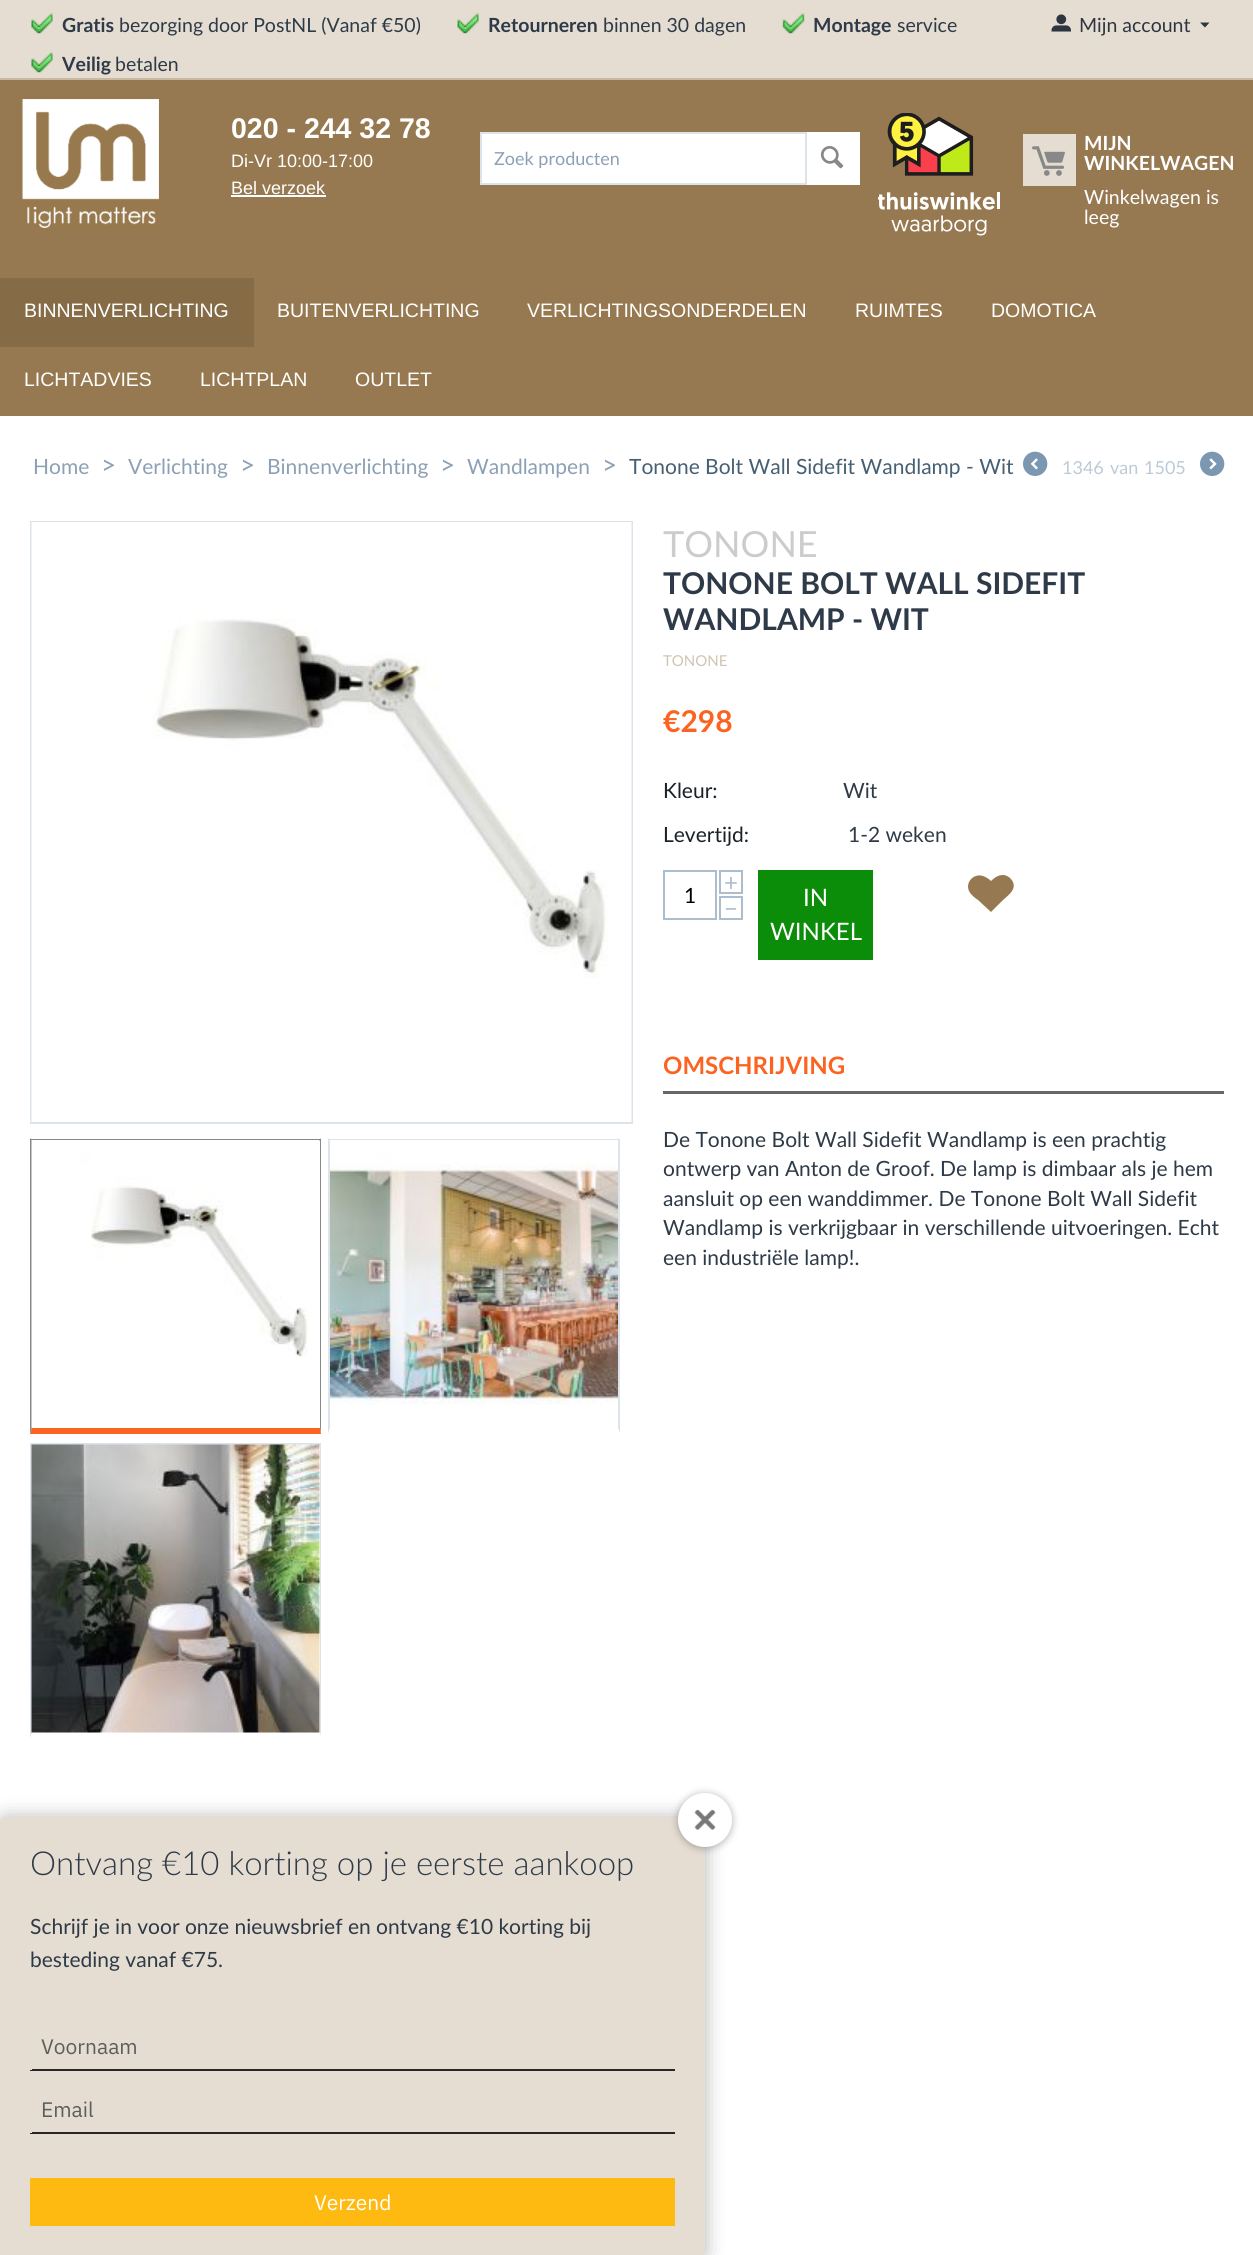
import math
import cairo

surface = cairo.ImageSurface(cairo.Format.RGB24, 1253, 2255)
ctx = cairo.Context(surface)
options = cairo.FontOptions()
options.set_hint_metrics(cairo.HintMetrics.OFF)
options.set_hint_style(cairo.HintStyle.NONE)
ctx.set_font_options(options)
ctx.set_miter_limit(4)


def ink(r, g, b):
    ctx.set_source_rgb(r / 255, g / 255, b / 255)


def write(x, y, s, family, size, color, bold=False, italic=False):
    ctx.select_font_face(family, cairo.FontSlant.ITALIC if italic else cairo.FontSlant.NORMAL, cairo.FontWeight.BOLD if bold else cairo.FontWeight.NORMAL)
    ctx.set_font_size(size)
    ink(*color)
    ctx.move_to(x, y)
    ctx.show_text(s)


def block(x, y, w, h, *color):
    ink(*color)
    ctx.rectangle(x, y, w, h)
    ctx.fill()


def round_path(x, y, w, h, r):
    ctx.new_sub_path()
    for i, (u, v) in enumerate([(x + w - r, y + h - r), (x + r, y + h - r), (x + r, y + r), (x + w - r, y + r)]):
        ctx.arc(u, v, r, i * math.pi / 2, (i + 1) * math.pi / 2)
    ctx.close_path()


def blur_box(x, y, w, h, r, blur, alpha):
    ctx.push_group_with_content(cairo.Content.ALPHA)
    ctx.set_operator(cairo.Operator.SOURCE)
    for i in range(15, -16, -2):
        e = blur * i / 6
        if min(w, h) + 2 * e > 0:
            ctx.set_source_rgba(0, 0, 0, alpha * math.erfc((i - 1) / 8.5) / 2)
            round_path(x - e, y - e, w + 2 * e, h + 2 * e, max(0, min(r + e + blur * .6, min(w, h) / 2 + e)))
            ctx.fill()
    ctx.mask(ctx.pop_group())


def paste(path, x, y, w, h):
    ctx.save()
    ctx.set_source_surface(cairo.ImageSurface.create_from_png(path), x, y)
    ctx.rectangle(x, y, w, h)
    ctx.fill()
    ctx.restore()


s1 = dict(family="Lato", size=19.5, color=(46, 58, 71), bold=True)
s2 = dict(family="Lato", size=19.5, color=(46, 58, 71))
s3 = dict(family="Lato", size=19.5, color=(45, 53, 64))
s4 = dict(family="Liberation Sans", size=28.5, color=(255, 255, 255), bold=True)
s5 = dict(family="Liberation Sans", size=18, color=(255, 255, 255))
s6 = dict(family="Lato", size=18, color=(140, 160, 181))
s7 = dict(family="Lato", size=19.5, color=(255, 255, 255), bold=True)
s8 = dict(family="Lato", size=19.5, color=(255, 255, 255))
s9 = dict(family="Liberation Sans", size=19.5, color=(255, 255, 255))
s10 = dict(family="Lato", size=21, color=(140, 160, 181))
s11 = dict(family="Lato", size=26, color=(140, 160, 181))
s12 = dict(family="Lato", size=21, color=(70, 95, 115))
s13 = dict(family="Lato", size=18, color=(188, 202, 215))
s14 = dict(family="Lato", size=36, color=(204, 204, 204))
s15 = dict(family="Lato", size=30, color=(46, 58, 71), bold=True)
s16 = dict(family="Lato", size=15, color=(209, 196, 178))
s17 = dict(family="Lato", size=30, color=(253, 99, 32), bold=True)
s18 = dict(family="Lato", size=21, color=(26, 33, 40))
s19 = dict(family="Lato", size=21, color=(46, 58, 71))
s20 = dict(family="Lato", size=24, color=(172, 189, 205))
s21 = dict(family="Lato", size=21, color=(0, 0, 0))
s22 = dict(family="Lato", size=24, color=(255, 255, 255))
s23 = dict(family="Lato", size=24, color=(253, 99, 32), bold=True)
s24 = dict(family="Lato Light", size=33, color=(46, 58, 71))
s25 = dict(family="IBM Plex Sans", size=21, color=(93, 93, 93))
s26 = dict(family="IBM Plex Sans", size=21, color=(255, 255, 255))

ink(255, 255, 255)
ctx.paint()
block(0, 0, 1253, 78, 229, 221, 210)
block(0, 78, 1253, 2, 201, 184, 162)
paste("pic1.png", 31, 13, 22, 21)
write(62, 32, "Gratis", **s1)
write(119, 32, "bezorging door PostNL (Vanaf €50)", **s2)
paste("pic2.png", 457, 13, 22, 21)
write(488, 32, "Retourneren", **s1)
write(603, 32, "binnen 30 dagen", **s2)
paste("pic3.png", 782, 13, 23, 21)
write(813, 32, "Montage", **s1)
write(897, 32, "service", **s2)
paste("pic1.png", 31, 52, 22, 21)
write(62, 71, "Veilig", **s1)
write(115, 71, "betalen", **s2)
paste("pic4.png", 1051, 14, 20, 18)
write(1079, 32, "Mijn account", **s3)
ctx.new_path()
ctx.move_to(1205, 27.5)
ctx.line_to(1200, 22.5)
ctx.line_to(1209.5, 22.5)
ctx.close_path()
ctx.fill()
block(0, 80, 1253, 336, 150, 121, 80)
paste("pic5.png", 22, 99, 137, 129)
write(231, 138, "020 - 244 32 78", **s4)
write(231, 167, "Di-Vr 10:00-17:00", **s5)
write(231, 194, "Bel verzoek", **s5)
block(231, 195, 95, 2, 255, 255, 255)
ctx.rectangle(481, 133, 325, 51)
ctx.fill_preserve()
ink(220, 227, 234)
ctx.stroke()
write(494, 165, "Zoek producten", **s6)
block(807, 132, 53, 53, 255, 255, 255)
paste("pic6.png", 820, 146, 24, 23)
paste("pic7.png", 878, 113, 122, 123)
block(1023, 134, 53, 52, 229, 221, 210)
paste("pic8.png", 1032, 146, 33, 30)
write(1084, 150, "MIJN", **s7)
write(1084, 170, "WINKELWAGEN", **s7)
write(1084, 204, "Winkelwagen is", **s8)
write(1084, 224, "leeg", **s8)
block(0, 278, 254, 69, 133, 108, 71)
write(24, 317, "BINNENVERLICHTING", **s9)
write(277, 317, "BUITENVERLICHTING", **s9)
write(527, 317, "VERLICHTINGSONDERDELEN", **s9)
write(855, 317, "RUIMTES", **s9)
write(991, 317, "DOMOTICA", **s9)
write(24, 386, "LICHTADVIES", **s9)
write(200, 386, "LICHTPLAN", **s9)
write(355, 386, "OUTLET", **s9)
write(33, 474, "Home", **s10)
write(101, 474, ">", **s11)
write(128, 474, "Verlichting", **s10)
write(240, 474, ">", **s11)
write(267, 474, "Binnenverlichting", **s10)
write(440, 474, ">", **s11)
write(467, 474, "Wandlampen", **s10)
write(602, 474, ">", **s11)
write(629, 474, "Tonone Bolt Wall Sidefit Wandlamp - Wit", **s12)
paste("pic9.png", 1023, 451, 25, 25)
write(1062, 474, "1346", **s13)
write(1110, 474, "van", **s13)
write(1144, 474, "1505", **s13)
paste("pic10.png", 1200, 451, 25, 25)
ctx.rectangle(31, 522, 601, 601)
ink(220, 227, 234)
ctx.stroke()
paste("pic11.png", 31, 522, 601, 600)
block(30, 1139, 291, 2, 136, 136, 136)
ctx.new_path()
ctx.move_to(321, 1138)
ctx.line_to(321, 1434)
ctx.line_to(320, 1428)
ctx.line_to(320, 1140)
ctx.close_path()
ctx.fill()
ink(253, 99, 32)
ctx.new_path()
ctx.move_to(321, 1434)
ctx.line_to(30, 1434)
ctx.line_to(32, 1428)
ctx.line_to(320, 1428)
ctx.close_path()
ctx.fill()
ink(136, 136, 136)
ctx.new_path()
ctx.move_to(30, 1434)
ctx.line_to(30, 1138)
ctx.line_to(32, 1140)
ctx.line_to(32, 1428)
ctx.close_path()
ctx.fill()
paste("pic12.png", 31, 1140, 289, 288)
block(329, 1139, 291, 1, 220, 227, 234)
ctx.new_path()
ctx.move_to(620, 1138)
ctx.line_to(620, 1434)
ctx.line_to(618, 1428)
ctx.line_to(618, 1140)
ctx.close_path()
ctx.fill()
ink(255, 255, 255)
ctx.new_path()
ctx.move_to(620, 1434)
ctx.line_to(328, 1434)
ctx.line_to(330, 1428)
ctx.line_to(618, 1428)
ctx.close_path()
ctx.fill()
ink(220, 227, 234)
ctx.new_path()
ctx.move_to(328, 1434)
ctx.line_to(328, 1138)
ctx.line_to(330, 1140)
ctx.line_to(330, 1428)
ctx.close_path()
ctx.fill()
paste("pic13.png", 330, 1140, 288, 265)
block(30, 1443, 291, 2, 220, 227, 234)
ctx.new_path()
ctx.move_to(321, 1443)
ctx.line_to(321, 1738)
ctx.line_to(320, 1732)
ctx.line_to(320, 1444)
ctx.close_path()
ctx.fill()
ink(255, 255, 255)
ctx.new_path()
ctx.move_to(321, 1738)
ctx.line_to(30, 1738)
ctx.line_to(32, 1732)
ctx.line_to(320, 1732)
ctx.close_path()
ctx.fill()
ink(220, 227, 234)
ctx.new_path()
ctx.move_to(30, 1738)
ctx.line_to(30, 1443)
ctx.line_to(32, 1444)
ctx.line_to(32, 1732)
ctx.close_path()
ctx.fill()
paste("pic14.png", 31, 1444, 289, 289)
write(663, 557, "TONONE", **s14)
write(663, 594, "TONONE BOLT WALL SIDEFIT", **s15)
write(663, 630, "WANDLAMP - WIT", **s15)
write(663, 666, "TONONE", **s16)
write(663, 732, "€298", **s17)
write(663, 798, "Kleur:", **s18)
write(843, 798, "Wit", **s19)
write(663, 842, "Levertijd:", **s18)
write(848, 842, "1-2 weken", **s19)
ctx.rectangle(720, 871, 22, 22)
ink(172, 189, 205)
ctx.stroke()
write(724, 891, "+", **s20)
ctx.rectangle(664, 871, 52, 48)
ctx.stroke()
write(684, 903, "1", **s21)
ctx.rectangle(720, 897, 22, 22)
ink(172, 189, 205)
ctx.stroke()
write(724, 917, "−", **s20)
block(758, 870, 115, 90, 12, 141, 10)
write(803, 906, "IN", **s22)
write(770, 940, "WINKEL", **s22)
ink(150, 121, 80)
ctx.new_path()
ctx.move_to(1010, 878)
ctx.curve_to(1019, 887, 1010, 894, 1003, 900)
ctx.line_to(991, 912)
ctx.line_to(978, 900)
ctx.curve_to(975, 898, 971, 895, 969, 891)
ctx.curve_to(965, 882, 974, 873, 983, 876)
ctx.curve_to(986, 877, 989, 879, 991, 881)
ctx.curve_to(996, 876, 1003, 872, 1010, 878)
ctx.close_path()
ctx.fill()
block(663, 1091, 561, 3, 102, 102, 102)
write(663, 1074, "OMSCHRIJVING", **s23)
write(663, 1147, "De Tonone Bolt Wall Sidefit Wandlamp is een prachtig", **s19)
write(663, 1176, "ontwerp van Anton de Groof. De lamp is dimbaar als je hem", **s19)
write(663, 1206, "aansluit op een wanddimmer. De Tonone Bolt Wall Sidefit", **s19)
write(663, 1235, "Wandlamp is verkrijgbaar in verschillende uitvoeringen. Echt", **s19)
write(663, 1265, "een industriële lamp!.", **s19)
ink(0, 0, 0)
blur_box(0, 1818, 705, 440, 6, 10, 0.3)
ink(229, 221, 210)
round_path(0, 1817, 705, 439, 6)
ctx.fill()
ink(0, 0, 0)
blur_box(678, 1794, 54, 54, 27, 4, 0.3)
ink(255, 255, 255)
ctx.arc(705, 1820, 27, 0, 2 * math.pi)
ctx.fill()
paste("pic15.png", 694, 1809, 22, 21)
write(30, 1875, "Ontvang €10 korting op je eerste aankoop", **s24)
write(30, 1934, "Schrijf je in voor onze nieuwsbrief en ontvang €10 korting bij", **s19)
write(30, 1967, "besteding vanaf €75.", **s19)
block(30, 2069, 645, 2, 38, 38, 38)
block(30, 2069, 2, 1, 229, 221, 210)
write(41, 2054, "Voornaam", **s25)
block(30, 2132, 645, 2, 38, 38, 38)
block(30, 2132, 2, 1, 229, 221, 210)
write(41, 2117, "Email", **s25)
block(30, 2178, 645, 48, 254, 186, 17)
write(314, 2210, "Verzend", **s26)
surface.write_to_png("screenshot.png")
